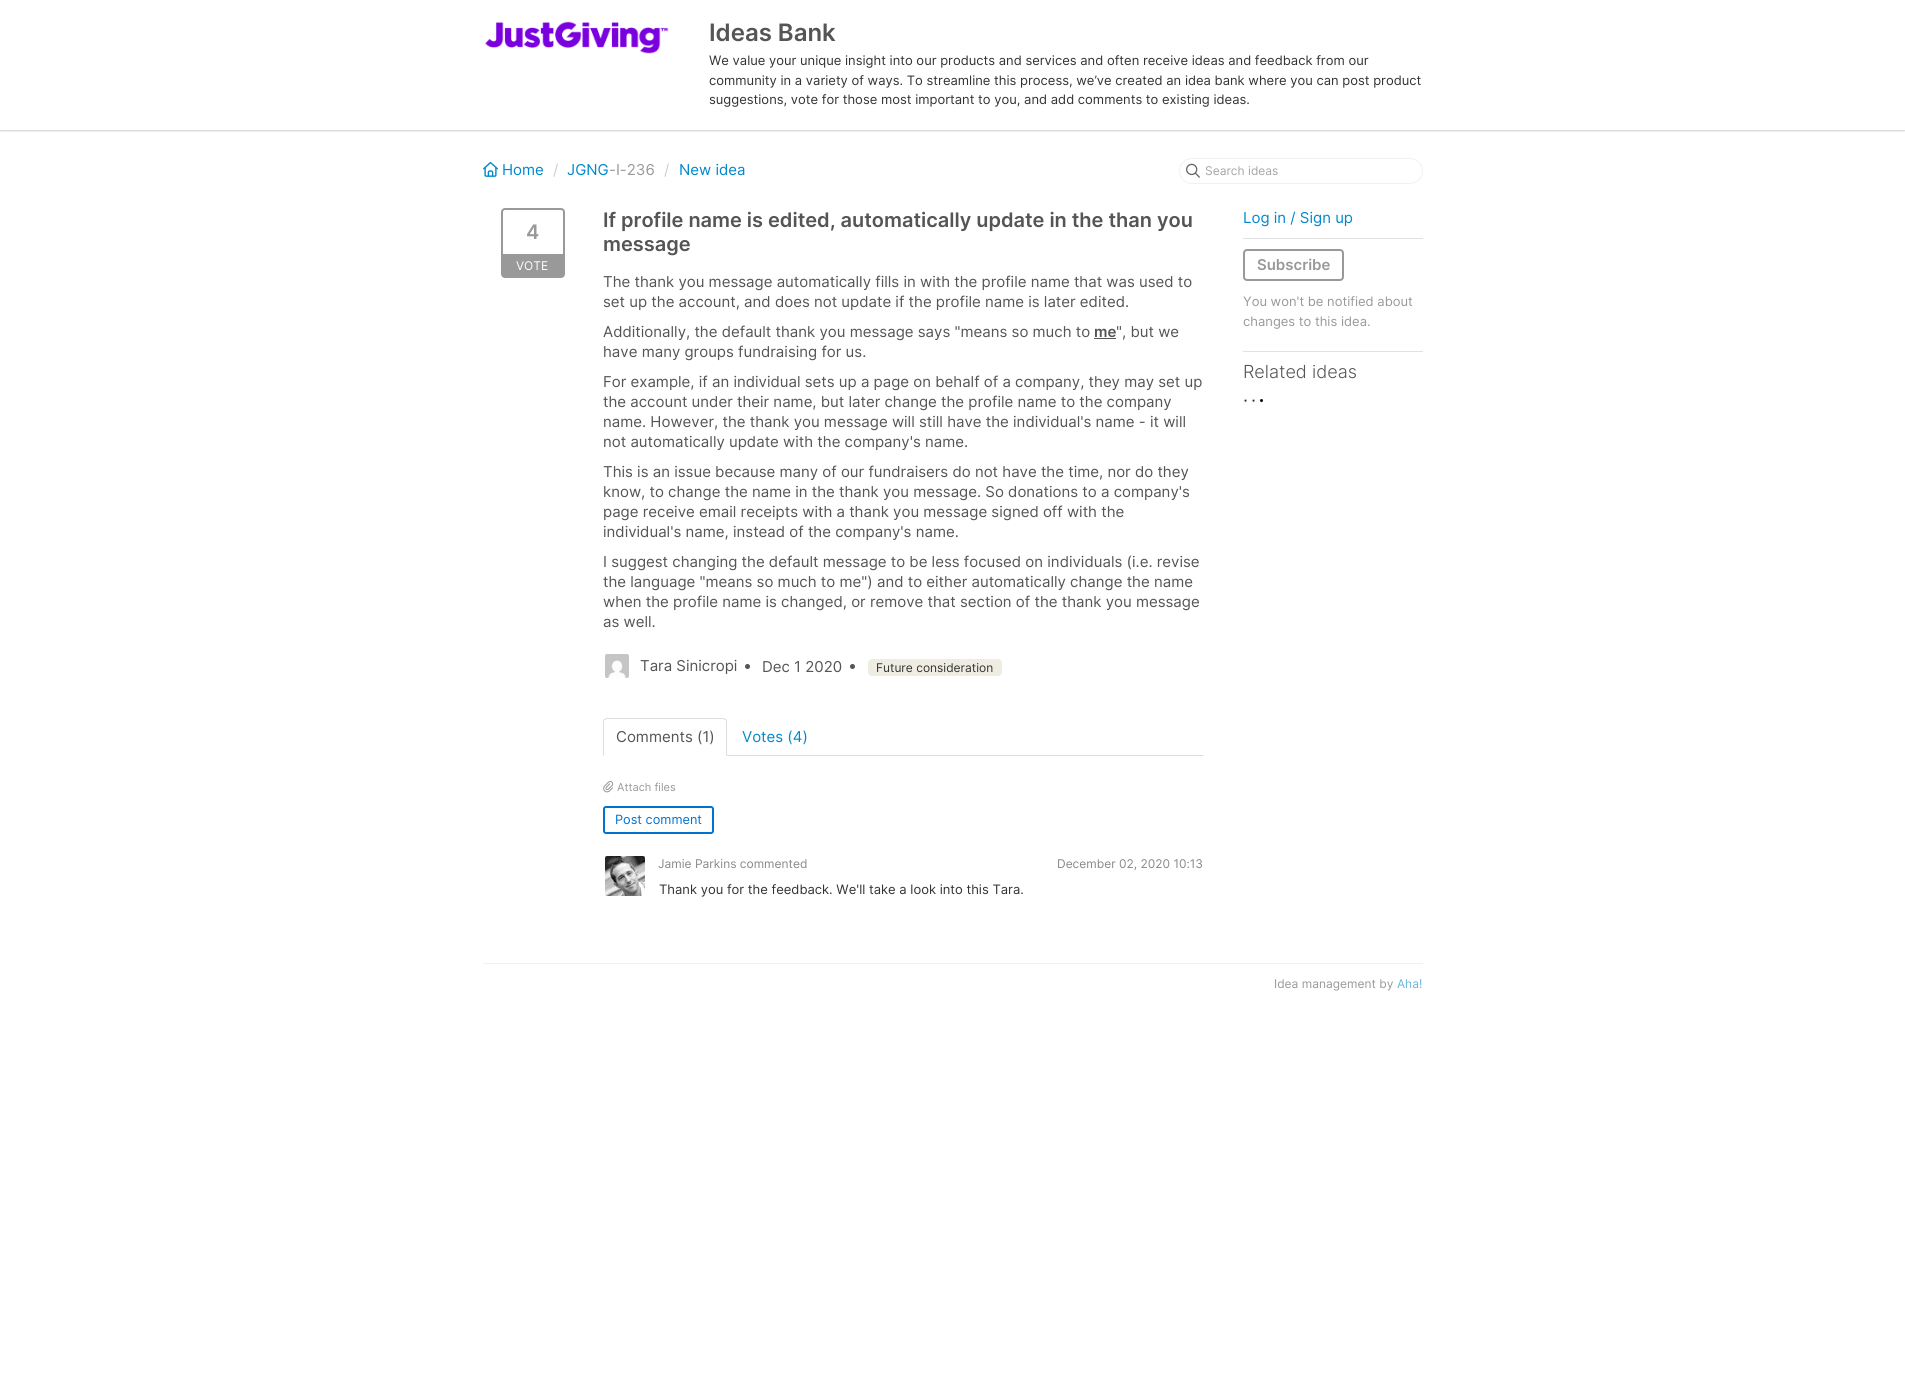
import math
import cairo

surface = cairo.ImageSurface(cairo.Format.RGB24, 1905, 1375)
ctx = cairo.Context(surface)
options = cairo.FontOptions()
options.set_hint_metrics(cairo.HintMetrics.OFF)
options.set_hint_style(cairo.HintStyle.NONE)
ctx.set_font_options(options)
ctx.set_miter_limit(4)


def ink(r, g, b):
    ctx.set_source_rgb(r / 255, g / 255, b / 255)


def write(x, y, s, family, size, color, bold=False, italic=False):
    ctx.select_font_face(family, cairo.FontSlant.ITALIC if italic else cairo.FontSlant.NORMAL, cairo.FontWeight.BOLD if bold else cairo.FontWeight.NORMAL)
    ctx.set_font_size(size)
    ink(*color)
    ctx.move_to(x, y)
    ctx.show_text(s)


def block(x, y, w, h, *color):
    ink(*color)
    ctx.rectangle(x, y, w, h)
    ctx.fill()


def round_path(x, y, w, h, r):
    ctx.new_sub_path()
    for i, (u, v) in enumerate([(x + w - r, y + h - r), (x + r, y + h - r), (x + r, y + r), (x + w - r, y + r)]):
        ctx.arc(u, v, r, i * math.pi / 2, (i + 1) * math.pi / 2)
    ctx.close_path()


def blur_box(x, y, w, h, r, blur, alpha):
    ctx.push_group_with_content(cairo.Content.ALPHA)
    ctx.set_operator(cairo.Operator.SOURCE)
    for i in range(15, -16, -2):
        e = blur * i / 6
        if min(w, h) + 2 * e > 0:
            ctx.set_source_rgba(0, 0, 0, alpha * math.erfc((i - 1) / 8.5) / 2)
            round_path(x - e, y - e, w + 2 * e, h + 2 * e, max(0, min(r + e + blur * .6, min(w, h) / 2 + e)))
            ctx.fill()
    ctx.mask(ctx.pop_group())


def paste(path, x, y, w, h):
    ctx.save()
    ctx.set_source_surface(cairo.ImageSurface.create_from_png(path), x, y)
    ctx.rectangle(x, y, w, h)
    ctx.fill()
    ctx.restore()


s1 = dict(family="Inter SemiBold", size=24, color=(85, 85, 85))
s2 = dict(family="Inter", size=13, color=(51, 51, 51))
s3 = dict(family="Inter", size=15, color=(0, 136, 204))
s4 = dict(family="Inter", size=15, color=(204, 204, 204))
s5 = dict(family="Inter", size=15, color=(153, 153, 153))
s6 = dict(family="Inter", size=12, color=(165, 165, 165))
s7 = dict(family="Inter SemiBold", size=20, color=(153, 153, 153))
s8 = dict(family="Inter", size=12, color=(255, 255, 255))
s9 = dict(family="Inter SemiBold", size=20, color=(85, 85, 85))
s10 = dict(family="Inter", size=15, color=(85, 85, 85))
s11 = dict(family="Inter SemiBold", size=15, color=(85, 85, 85))
s12 = dict(family="Inter", size=12, color=(51, 51, 51))
s13 = dict(family="Inter", size=11, color=(153, 153, 153))
s14 = dict(family="Inter", size=12.75, color=(1, 115, 207))
s15 = dict(family="Inter", size=12, color=(136, 136, 136))
s16 = dict(family="Inter SemiBold", size=15, color=(153, 153, 153))
s17 = dict(family="Inter", size=13, color=(153, 153, 153))
s18 = dict(family="Inter Light", size=18, color=(85, 85, 85))
s19 = dict(family="Inter", size=12, color=(153, 153, 153))
s20 = dict(family="Inter", size=12, color=(102, 184, 224))

ink(255, 255, 255)
ctx.paint()
ctx.save()
ctx.rectangle(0, 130, 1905, 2)
ctx.clip()
ink(0, 0, 0)
blur_box(0, 1, 1905, 130, 0, 1, 0.2)
ctx.restore()
paste("pic1.png", 485, 21, 184, 33)
write(709, 41, "Ideas Bank", **s1)
write(709, 65, "We value your unique insight into our products and services and often receive ideas and feedback from our", **s2)
write(709, 85, "community in a variety of ways. To streamline this process, we’ve created an idea bank where you can post product", **s2)
write(709, 104, "suggestions, vote for those most important to you, and add comments to existing ideas.", **s2)
paste("pic2.png", 483, 161, 15, 16)
write(502, 175, "Home", **s3)
write(553, 175, "/", **s4)
write(567, 175, "JGNG", **s3)
write(609, 175, "-I-236", **s5)
write(664, 175, "/", **s4)
write(679, 175, "New idea", **s3)
round_path(1179.5, 158.5, 243, 25, 12.5)
ink(241, 241, 241)
ctx.set_line_width(1)
ctx.stroke()
paste("pic3.png", 1186, 163, 14, 15)
write(1205, 175, "Search ideas", **s6)
round_path(502, 209, 62, 68, 3)
ink(153, 153, 153)
ctx.set_line_width(2)
ctx.stroke()
write(526, 239, "4", **s7)
block(503, 254, 60, 22, 153, 153, 153)
write(516, 270, "VOTE", **s8)
write(603, 227, "If profile name is edited, automatically update in the than you", **s9)
write(603, 251, "message", **s9)
write(603, 287, "The thank you message automatically fills in with the profile name that was used to", **s10)
write(603, 307, "set up the account, and does not update if the profile name is later edited.", **s10)
write(603, 337, "Additionally, the default thank you message says \"means so much to", **s10)
write(1094, 337, "me", **s11)
block(1094, 338, 22, 1, 85, 85, 85)
write(1116, 337, "\", but we", **s10)
write(603, 357, "have many groups fundraising for us.", **s10)
write(603, 387, "For example, if an individual sets up a page on behalf of a company, they may set up", **s10)
write(603, 407, "the account under their name, but later change the profile name to the company", **s10)
write(603, 427, "name. However, the thank you message will still have the individual's name - it will", **s10)
write(603, 447, "not automatically update with the company's name.", **s10)
write(603, 477, "This is an issue because many of our fundraisers do not have the time, nor do they", **s10)
write(603, 497, "know, to change the name in the thank you message. So donations to a company's", **s10)
write(603, 517, "page receive email receipts with a thank you message signed off with the", **s10)
write(603, 537, "individual's name, instead of the company's name.", **s10)
write(603, 567, "I suggest changing the default message to be less focused on individuals (i.e. revise", **s10)
write(603, 587, "the language \"means so much to me\") and to either automatically change the name", **s10)
write(603, 607, "when the profile name is changed, or remove that section of the thank you message", **s10)
write(603, 627, "as well.", **s10)
paste("pic4.png", 605, 654, 24, 24)
write(640, 671, "Tara Sinicropi", **s10)
ctx.new_path()
ctx.arc(747.5, 666.5, 2.5, 0, 2 * math.pi)
ctx.fill()
write(762, 672, "Dec 1 2020", **s10)
ctx.new_path()
ctx.arc(852.5, 666.5, 2.5, 0, 2 * math.pi)
ctx.fill()
ink(239, 236, 225)
round_path(868, 659, 134, 17, 4)
ctx.fill()
write(876, 672, "Future consideration", **s12)
block(727, 755, 476, 1, 221, 221, 221)
ctx.new_path()
ctx.move_to(607, 718)
ctx.line_to(604, 719)
ctx.line_to(605, 720)
ctx.line_to(607, 719)
ctx.line_to(723, 719)
ctx.line_to(725, 720)
ctx.line_to(726, 719)
ctx.line_to(723, 718)
ctx.close_path()
ctx.fill()
ctx.new_path()
ctx.move_to(727, 756)
ctx.line_to(727, 722)
ctx.curve_to(727, 721, 726.5, 720, 726, 719)
ctx.line_to(725, 720)
ctx.curve_to(726, 720, 726, 721, 726, 722)
ctx.line_to(726, 755)
ctx.close_path()
ctx.fill()
ctx.new_path()
ctx.move_to(603, 756)
ctx.line_to(604, 755)
ctx.line_to(604, 722)
ctx.curve_to(604, 721, 604, 720, 605, 720)
ctx.line_to(604, 719)
ctx.curve_to(603.5, 720, 603, 721, 603, 722)
ctx.close_path()
ctx.fill()
write(616, 742, "Comments (1)", **s10)
write(742, 742, "Votes (4)", **s3)
paste("pic5.png", 603, 781, 11, 12)
write(617, 791, "Attach files", **s13)
round_path(604, 807, 109, 26, 2)
ink(1, 115, 207)
ctx.stroke()
write(615, 824, "Post comment", **s14)
paste("pic6.png", 605, 856, 40, 40)
write(658, 868, "Jamie Parkins commented", **s15)
write(1057, 868, "December 02, 2020 10:13", **s15)
write(659, 894, "Thank you for the feedback. We'll take a look into this Tara.", **s2)
block(1243, 238, 180, 1, 225, 225, 225)
write(1243, 223, "Log in / Sign up", **s3)
block(1243, 351, 180, 1, 225, 225, 225)
round_path(1244, 250, 99, 30, 3)
ink(153, 153, 153)
ctx.stroke()
write(1257, 270, "Subscribe", **s16)
write(1243, 306, "You won't be notified about", **s17)
write(1243, 326, "changes to this idea.", **s17)
write(1243, 378, "Related ideas", **s18)
paste("pic7.png", 1243, 399, 21, 4)
block(483, 963, 940, 1, 241, 241, 241)
write(1274, 988, "Idea management by", **s19)
write(1397, 988, "Aha!", **s20)
surface.write_to_png("screenshot.png")
